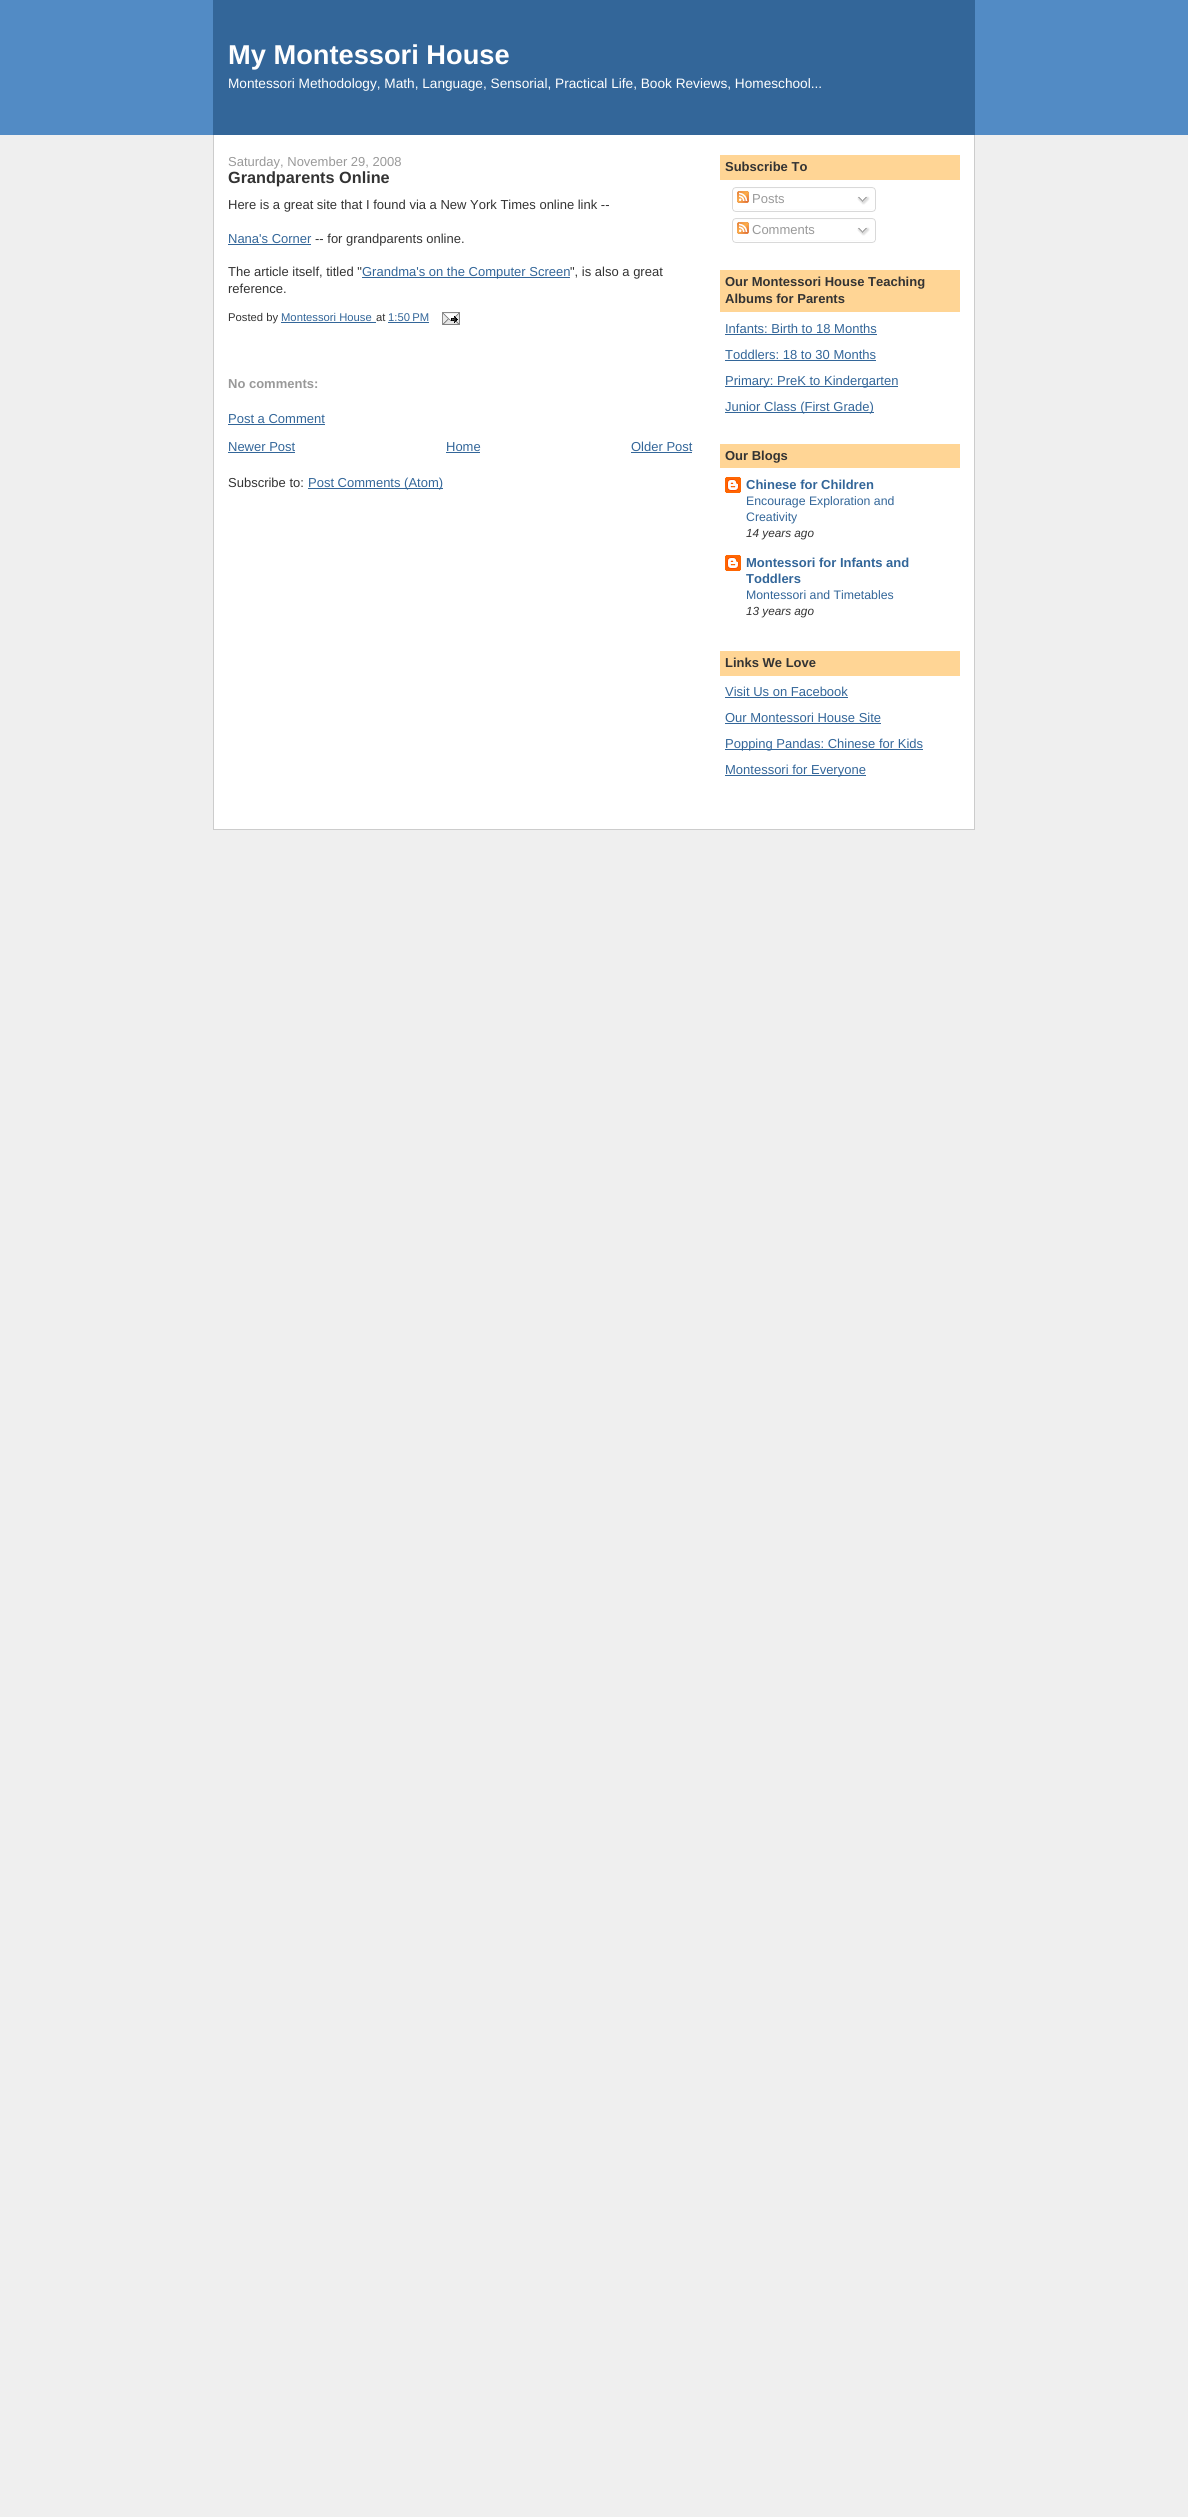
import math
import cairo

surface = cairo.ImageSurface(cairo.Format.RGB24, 1188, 2517)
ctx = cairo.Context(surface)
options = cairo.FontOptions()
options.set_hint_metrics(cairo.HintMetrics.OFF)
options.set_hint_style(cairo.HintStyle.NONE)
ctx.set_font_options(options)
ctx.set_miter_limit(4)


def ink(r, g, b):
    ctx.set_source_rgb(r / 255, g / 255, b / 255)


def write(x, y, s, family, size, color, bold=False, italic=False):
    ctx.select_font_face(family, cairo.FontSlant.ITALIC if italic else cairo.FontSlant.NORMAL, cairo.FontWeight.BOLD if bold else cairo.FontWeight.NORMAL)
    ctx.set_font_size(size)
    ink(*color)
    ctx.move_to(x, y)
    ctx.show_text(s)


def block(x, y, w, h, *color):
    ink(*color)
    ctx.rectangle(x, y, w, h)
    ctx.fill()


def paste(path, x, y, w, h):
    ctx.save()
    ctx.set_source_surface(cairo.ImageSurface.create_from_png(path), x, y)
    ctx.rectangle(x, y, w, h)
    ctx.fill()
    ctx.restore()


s1 = dict(family="Liberation Sans", size=27.25, color=(255, 255, 255), bold=True)
s2 = dict(family="Liberation Sans", size=13.65, color=(255, 255, 255))
s3 = dict(family="Liberation Sans", size=13, color=(153, 153, 153))
s4 = dict(family="Liberation Sans", size=16.25, color=(51, 51, 51), bold=True)
s5 = dict(family="Liberation Sans", size=13, color=(51, 51, 51))
s6 = dict(family="Liberation Sans", size=13, color=(51, 102, 153))
s7 = dict(family="Liberation Sans", size=11.25, color=(51, 51, 51))
s8 = dict(family="Liberation Sans", size=11.25, color=(51, 102, 153))
s9 = dict(family="Liberation Sans", size=13, color=(153, 153, 153), bold=True)
s10 = dict(family="Liberation Sans", size=13, color=(51, 51, 51), bold=True)
s11 = dict(family="Liberation Sans", size=13, color=(51, 102, 153), bold=True)
s12 = dict(family="Liberation Sans", size=12.3, color=(51, 102, 153))
s13 = dict(family="Liberation Sans", size=11.75, color=(51, 51, 51), italic=True)

ink(239, 239, 239)
ctx.paint()
block(0, 0, 1188, 135, 82, 139, 197)
block(213, 0, 762, 135, 51, 102, 153)
write(228, 64, "My Montessori House", **s1)
write(228, 88, "Montessori Methodology, Math, Language, Sensorial, Practical Life, Book Reviews, Homeschool...", **s2)
block(214, 135, 760, 694, 255, 255, 255)
block(974, 135, 1, 695, 204, 204, 204)
block(213, 829, 762, 1, 204, 204, 204)
block(213, 135, 1, 695, 204, 204, 204)
write(228, 166, "Saturday, November 29, 2008", **s3)
write(228, 183, "Grandparents Online", **s4)
write(228, 209, "Here is a great site that I found via a New York Times online link --", **s5)
write(228, 243, "Nana's Corner", **s6)
block(228, 244, 83, 1, 51, 102, 153)
write(315, 243, "-- for grandparents online.", **s5)
write(228, 276, "The article itself, titled \"", **s5)
block(362, 277, 208, 1, 51, 102, 153)
write(362, 276, "Grandma's on the Computer Screen", **s6)
write(570, 276, "\", is also a great", **s5)
write(228, 293, "reference.", **s5)
write(228, 321, "Posted by", **s7)
block(281, 322, 95, 1, 51, 102, 153)
write(281, 321, "Montessori House", **s8)
write(376, 321, "at", **s7)
write(388, 321, "1:50 PM", **s8)
block(388, 322, 41, 1, 51, 102, 153)
paste("pic1.png", 442, 312, 18, 13)
write(228, 388, "No comments:", **s9)
write(228, 423, "Post a Comment", **s6)
block(228, 424, 97, 1, 51, 102, 153)
write(228, 451, "Newer Post", **s6)
block(228, 452, 67, 1, 51, 102, 153)
write(446, 451, "Home", **s6)
block(446, 452, 34, 1, 51, 102, 153)
write(631, 451, "Older Post", **s6)
block(631, 452, 61, 1, 51, 102, 153)
write(228, 487, "Subscribe to:", **s5)
block(308, 488, 135, 1, 51, 102, 153)
write(308, 487, "Post Comments (Atom)", **s6)
block(720, 155, 240, 25, 255, 213, 149)
write(725, 171, "Subscribe To", **s10)
paste("pic2.png", 732, 187, 144, 22)
paste("pic3.png", 737, 191, 12, 12)
write(752, 203, "Posts", **s3)
paste("pic4.png", 857, 196, 13, 9)
paste("pic5.png", 732, 209, 144, 3)
paste("pic2.png", 732, 218, 144, 22)
paste("pic3.png", 737, 222, 12, 12)
write(752, 234, "Comments", **s3)
paste("pic4.png", 857, 227, 13, 9)
paste("pic5.png", 732, 240, 144, 3)
block(720, 270, 240, 42, 255, 213, 149)
write(725, 286, "Our Montessori House Teaching", **s10)
write(725, 303, "Albums for Parents", **s10)
write(725, 333, "Infants: Birth to 18 Months", **s6)
block(725, 334, 152, 1, 51, 102, 153)
write(725, 359, "Toddlers: 18 to 30 Months", **s6)
block(725, 360, 151, 1, 51, 102, 153)
block(725, 386, 173, 1, 51, 102, 153)
write(725, 385, "Primary: PreK to Kindergarten", **s6)
block(725, 412, 149, 1, 51, 102, 153)
write(725, 411, "Junior Class (First Grade)", **s6)
block(720, 444, 240, 24, 255, 213, 149)
write(725, 460, "Our Blogs", **s10)
paste("pic6.png", 725, 477, 16, 16)
write(746, 489, "Chinese for Children", **s11)
write(746, 505, "Encourage Exploration and", **s12)
write(746, 521, "Creativity", **s12)
write(746, 537, "14 years ago", **s13)
paste("pic6.png", 725, 555, 16, 16)
write(746, 567, "Montessori for Infants and", **s11)
write(746, 583, "Toddlers", **s11)
write(746, 599, "Montessori and Timetables", **s12)
write(746, 615, "13 years ago", **s13)
block(720, 651, 240, 25, 255, 213, 149)
write(725, 667, "Links We Love", **s10)
write(725, 696, "Visit Us on Facebook", **s6)
block(725, 697, 123, 1, 51, 102, 153)
write(725, 722, "Our Montessori House Site", **s6)
block(725, 723, 156, 1, 51, 102, 153)
block(725, 749, 198, 1, 51, 102, 153)
write(725, 748, "Popping Pandas: Chinese for Kids", **s6)
block(725, 775, 141, 1, 51, 102, 153)
write(725, 774, "Montessori for Everyone", **s6)
surface.write_to_png("screenshot.png")
